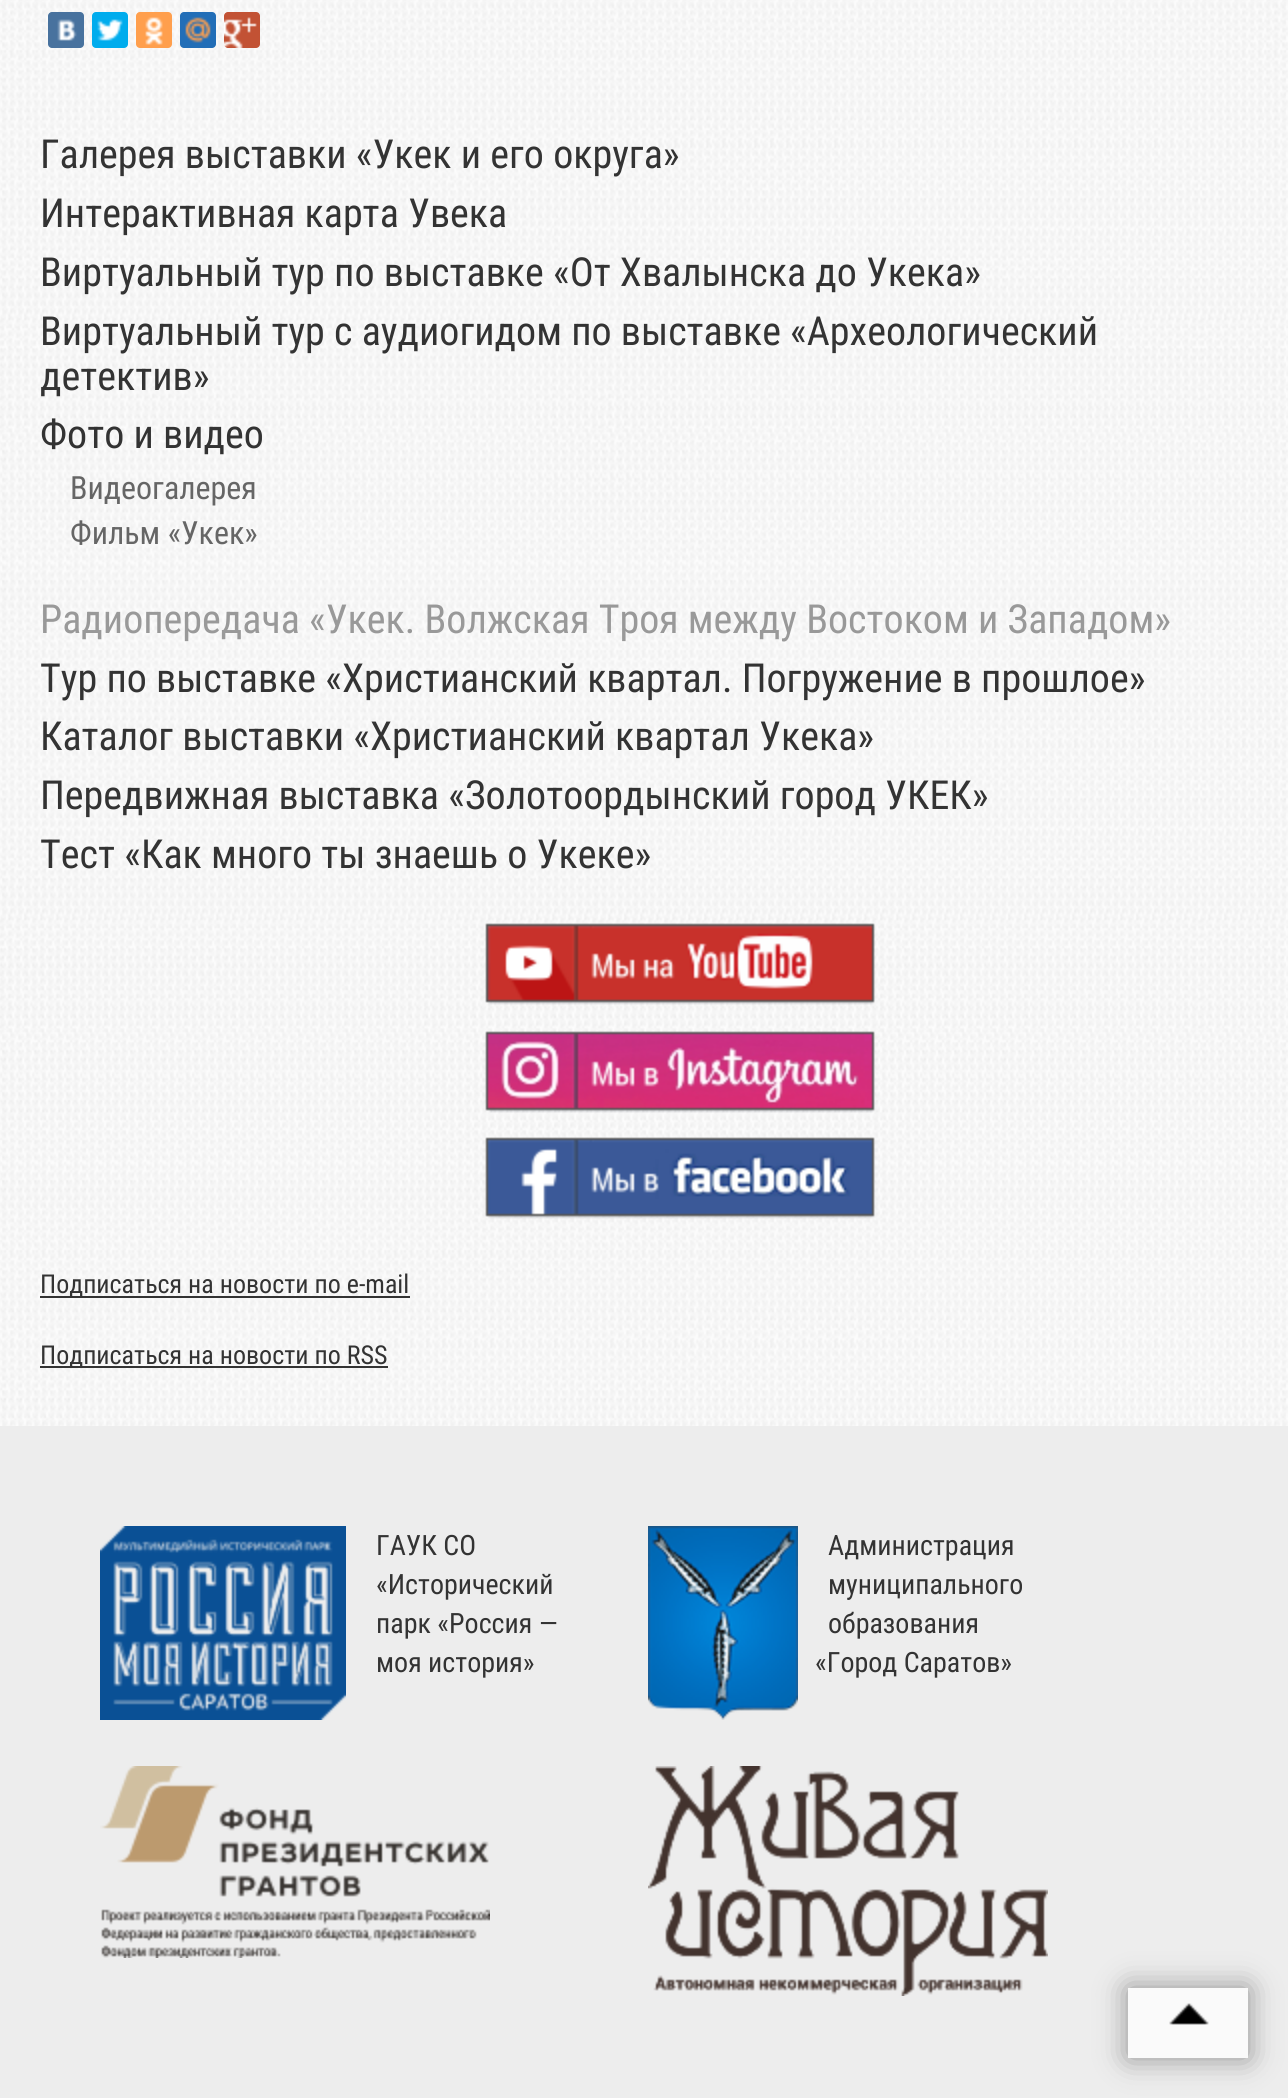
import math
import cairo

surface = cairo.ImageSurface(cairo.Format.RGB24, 1288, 2098)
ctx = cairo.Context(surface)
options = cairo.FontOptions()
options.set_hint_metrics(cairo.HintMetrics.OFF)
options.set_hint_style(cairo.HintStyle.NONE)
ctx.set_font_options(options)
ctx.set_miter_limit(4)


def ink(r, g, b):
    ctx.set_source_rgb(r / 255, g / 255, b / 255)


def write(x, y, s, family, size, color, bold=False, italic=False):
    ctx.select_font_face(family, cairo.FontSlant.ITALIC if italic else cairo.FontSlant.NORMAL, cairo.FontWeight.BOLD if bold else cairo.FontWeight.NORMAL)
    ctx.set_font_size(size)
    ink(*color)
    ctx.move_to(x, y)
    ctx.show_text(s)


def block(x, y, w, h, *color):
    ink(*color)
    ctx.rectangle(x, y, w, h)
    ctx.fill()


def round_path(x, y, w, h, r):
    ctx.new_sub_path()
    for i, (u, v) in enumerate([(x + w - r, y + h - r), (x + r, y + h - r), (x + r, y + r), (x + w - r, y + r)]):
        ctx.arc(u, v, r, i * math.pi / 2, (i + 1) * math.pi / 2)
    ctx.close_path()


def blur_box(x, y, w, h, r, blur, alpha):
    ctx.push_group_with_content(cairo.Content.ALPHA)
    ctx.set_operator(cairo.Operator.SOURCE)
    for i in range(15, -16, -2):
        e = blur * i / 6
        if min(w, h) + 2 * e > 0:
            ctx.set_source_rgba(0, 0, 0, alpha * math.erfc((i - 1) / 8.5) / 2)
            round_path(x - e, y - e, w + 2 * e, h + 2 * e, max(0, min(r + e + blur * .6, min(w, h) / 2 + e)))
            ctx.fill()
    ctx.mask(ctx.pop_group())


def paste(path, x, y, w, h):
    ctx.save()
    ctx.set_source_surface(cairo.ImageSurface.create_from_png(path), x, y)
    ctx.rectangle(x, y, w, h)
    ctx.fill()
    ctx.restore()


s1 = dict(family="Roboto Condensed", size=40, color=(51, 51, 51))
s2 = dict(family="Roboto Condensed", size=32, color=(102, 102, 102))
s3 = dict(family="Roboto Condensed", size=40, color=(153, 153, 153))
s4 = dict(family="Roboto Condensed", size=26, color=(51, 51, 51))
s5 = dict(family="Roboto Condensed", size=28, color=(51, 51, 51))

ink(255, 255, 255)
ctx.paint()
paste("pic1.png", 0, 0, 1288, 1426)
ink(72, 114, 158)
round_path(48, 12, 36, 36, 4)
ctx.fill()
paste("pic2.png", 57, 19, 20, 22)
ink(0, 172, 237)
round_path(92, 12, 36, 36, 4)
ctx.fill()
paste("pic3.png", 97, 19, 26, 22)
ink(255, 159, 77)
round_path(136, 12, 36, 36, 4)
ctx.fill()
paste("pic4.png", 145, 17, 18, 28)
ink(34, 110, 183)
round_path(180, 12, 36, 36, 4)
ctx.fill()
paste("pic5.png", 185, 17, 26, 26)
ink(194, 82, 52)
round_path(224, 12, 36, 36, 4)
ctx.fill()
paste("pic6.png", 224, 17, 33, 31)
write(40, 168, "Галерея выставки «Укек и его округа»", **s1)
write(40, 227, "Интерактивная карта Увека", **s1)
write(40, 286, "Виртуальный тур по выставке «От Хвалынска до Укека»", **s1)
write(40, 345, "Виртуальный тур с аудиогидом по выставке «Археологический", **s1)
write(40, 390, "детектив»", **s1)
write(40, 448, "Фото и видео", **s1)
write(70, 499, "Видеогалерея", **s2)
write(70, 544, "Фильм «Укек»", **s2)
write(40, 633, "Радиопередача «Укек. Волжская Троя между Востоком и Западом»", **s3)
write(40, 692, "Тур по выставке «Христианский квартал. Погружение в прошлое»", **s1)
write(40, 750, "Каталог выставки «Христианский квартал Укека»", **s1)
write(40, 809, "Передвижная выставка «Золотоордынский город УКЕК»", **s1)
write(40, 868, "Тест «Как много ты знаешь о Укеке»", **s1)
paste("pic7.png", 485, 923, 390, 82)
paste("pic8.png", 485, 1031, 390, 82)
paste("pic9.png", 485, 1137, 390, 82)
block(40, 1296, 370, 2, 51, 51, 51)
write(40, 1293, "Подписаться на новости по e-mail", **s4)
block(40, 1366, 348, 2, 51, 51, 51)
write(40, 1364, "Подписаться на новости по RSS", **s4)
block(0, 1426, 1288, 672, 237, 237, 237)
paste("pic10.png", 100, 1526, 246, 194)
write(376, 1555, "ГАУК СО", **s5)
write(376, 1594, "«Исторический", **s5)
write(376, 1633, "парк «Россия —", **s5)
write(376, 1672, "моя история»", **s5)
paste("pic11.png", 648, 1526, 150, 194)
write(828, 1555, "Администрация", **s5)
write(828, 1594, "муниципального", **s5)
write(828, 1633, "образования", **s5)
write(815, 1672, "«Город Саратов»", **s5)
paste("pic12.png", 100, 1766, 390, 192)
paste("pic13.png", 648, 1766, 400, 230)
ink(0, 0, 0)
blur_box(1128, 1988, 120, 70, 0, 15, 0.4)
block(1128, 1988, 120, 70, 250, 250, 250)
paste("pic14.png", 1169, 2003, 40, 22)
surface.write_to_png("screenshot.png")
